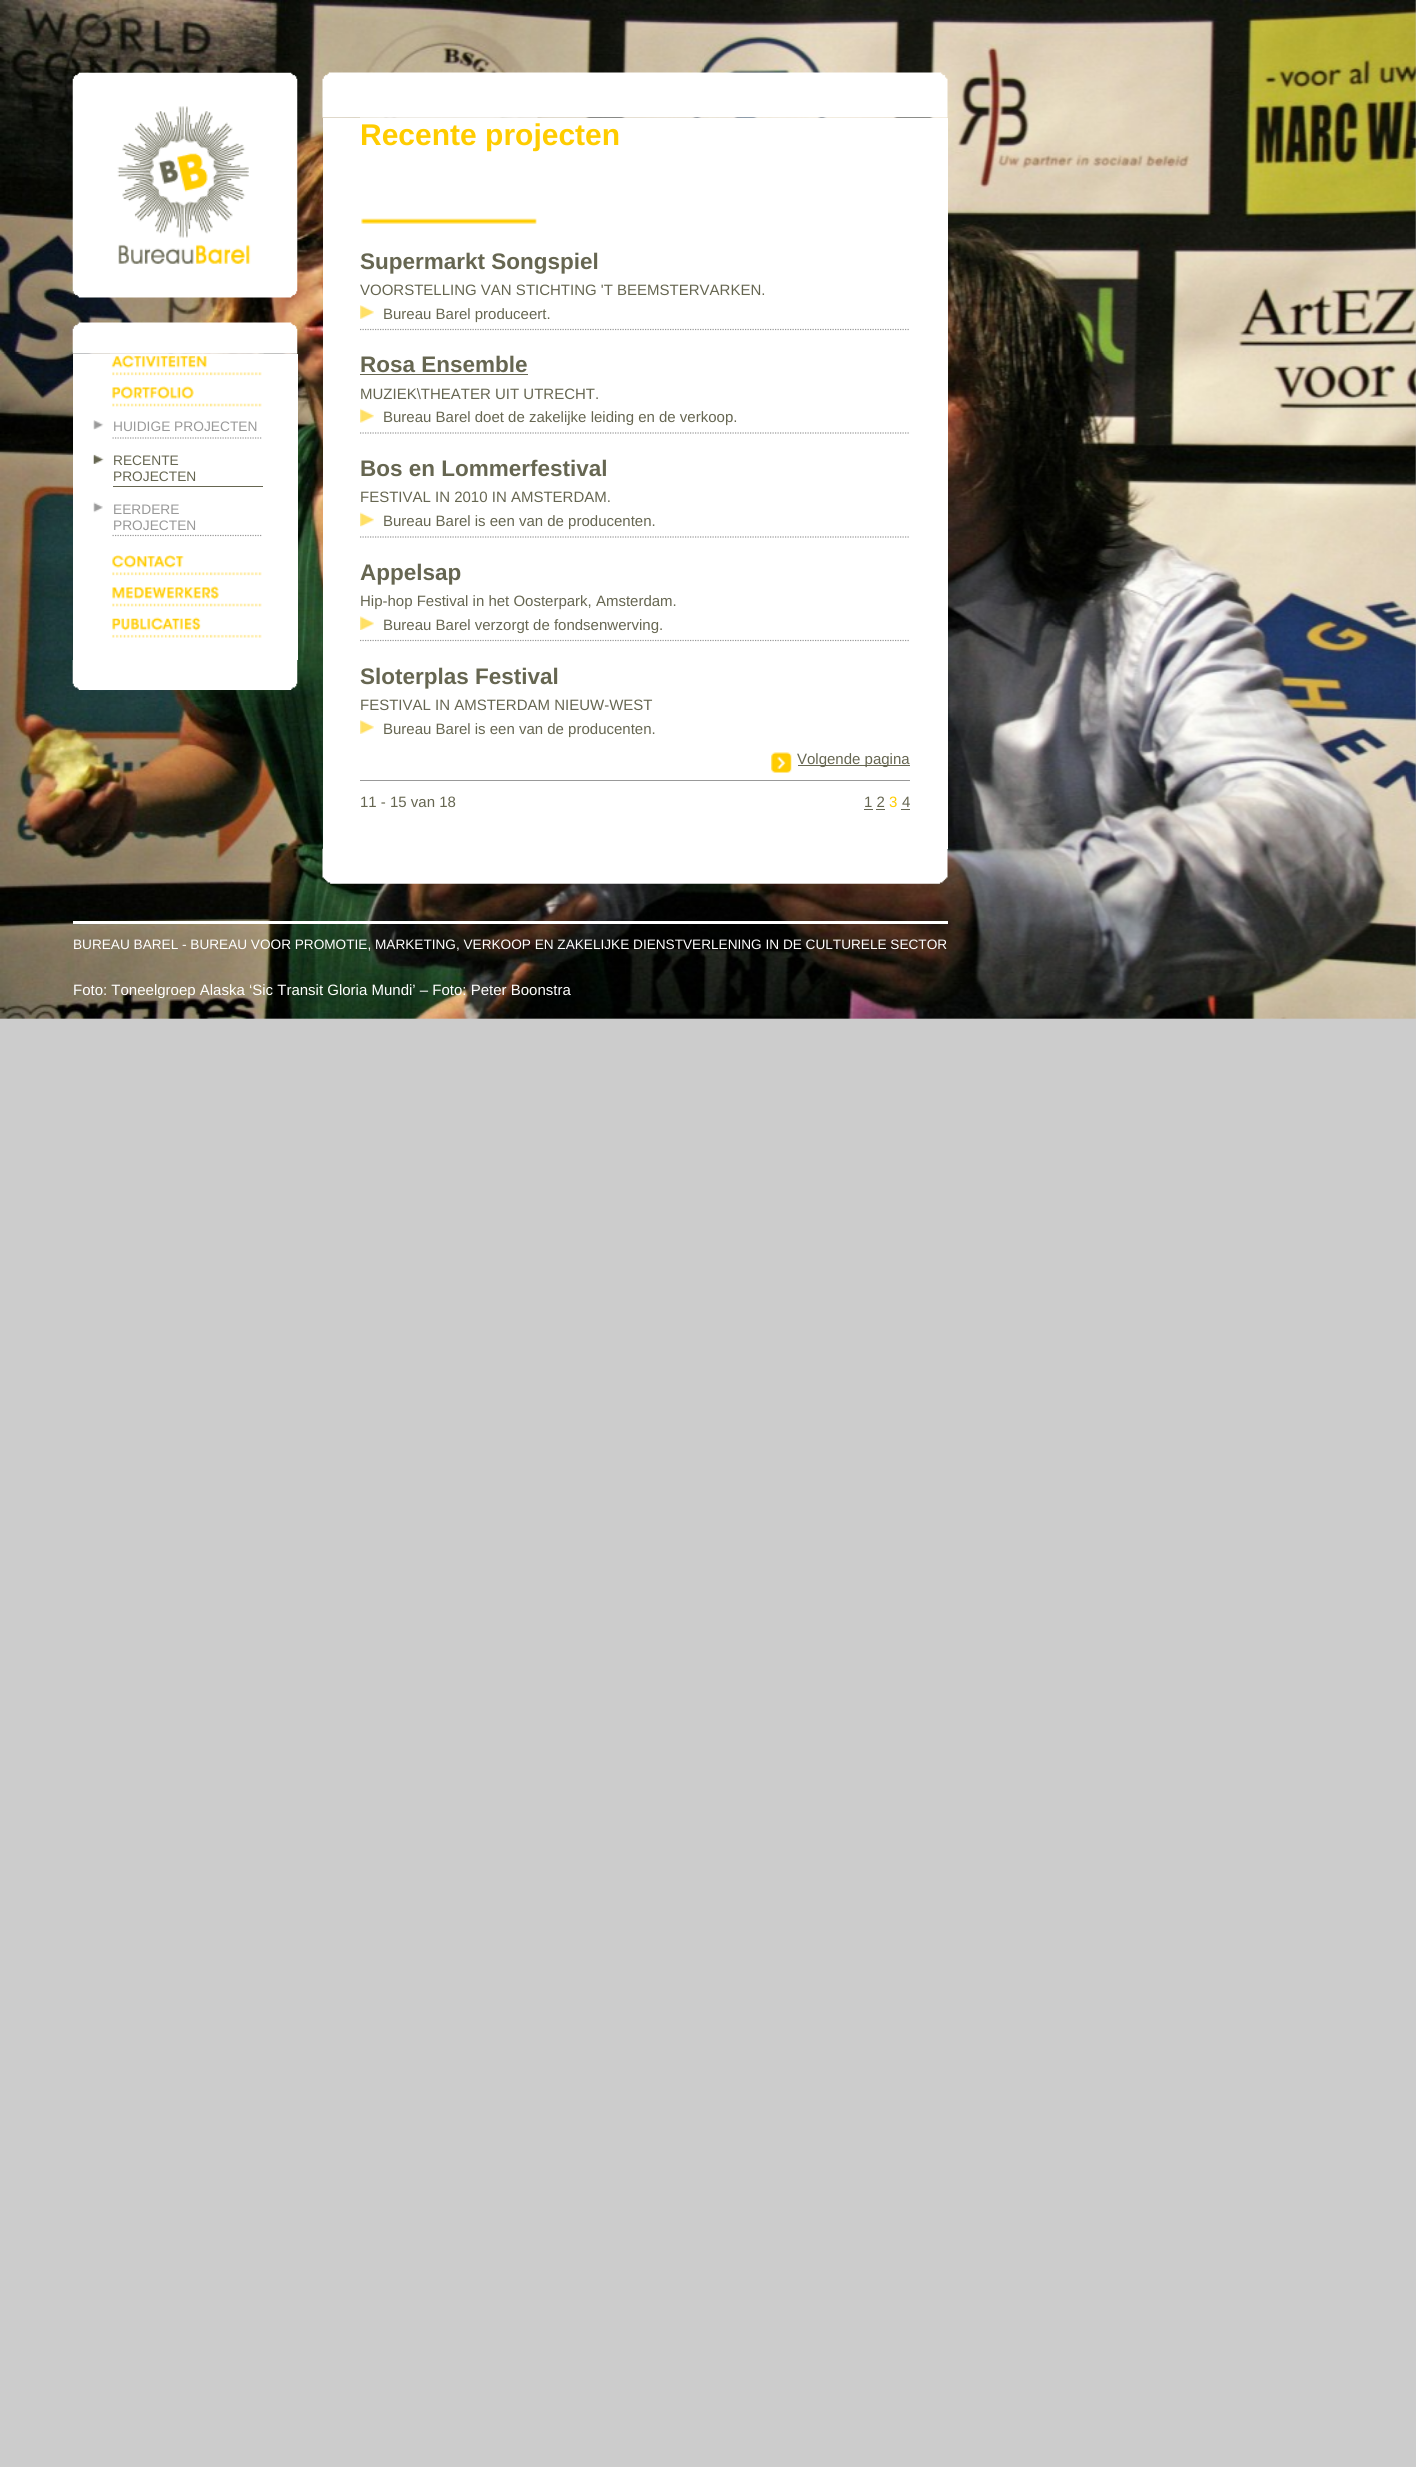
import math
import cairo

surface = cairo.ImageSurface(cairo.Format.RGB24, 1416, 2467)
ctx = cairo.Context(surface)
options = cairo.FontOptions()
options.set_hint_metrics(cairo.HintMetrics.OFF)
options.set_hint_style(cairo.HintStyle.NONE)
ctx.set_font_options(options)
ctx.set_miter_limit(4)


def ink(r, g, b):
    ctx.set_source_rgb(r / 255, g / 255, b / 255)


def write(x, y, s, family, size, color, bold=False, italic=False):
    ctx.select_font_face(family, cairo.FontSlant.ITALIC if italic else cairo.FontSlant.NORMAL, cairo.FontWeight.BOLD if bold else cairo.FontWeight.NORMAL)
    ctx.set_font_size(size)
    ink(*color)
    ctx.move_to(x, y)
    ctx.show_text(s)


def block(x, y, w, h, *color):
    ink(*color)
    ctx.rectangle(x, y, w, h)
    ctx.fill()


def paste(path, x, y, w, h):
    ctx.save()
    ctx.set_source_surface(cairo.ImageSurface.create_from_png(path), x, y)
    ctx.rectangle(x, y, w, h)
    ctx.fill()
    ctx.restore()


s1 = dict(family="Liberation Sans", size=13.75, color=(153, 153, 153))
s2 = dict(family="Liberation Sans", size=13.75, color=(102, 102, 81))
s3 = dict(family="Liberation Sans", size=30, color=(255, 204, 0), bold=True)
s4 = dict(family="Liberation Sans", size=22.5, color=(102, 102, 81), bold=True)
s5 = dict(family="Liberation Sans", size=15, color=(102, 102, 81))
s6 = dict(family="Liberation Sans", size=15, color=(255, 204, 0))
s7 = dict(family="Liberation Sans", size=13.62, color=(255, 255, 255))
s8 = dict(family="Liberation Sans", size=15, color=(255, 255, 255))

ink(204, 204, 204)
ctx.paint()
paste("pic1.png", 0, 0, 1416, 1019)
paste("pic2.png", 72, 72, 226, 226)
paste("pic3.png", 72, 322, 226, 32)
block(73, 354, 225, 306, 255, 255, 255)
paste("pic4.png", 110, 353, 154, 23)
paste("pic5.png", 112, 386, 150, 21)
ctx.new_path()
ctx.move_to(112.5, 438)
ctx.line_to(262.5, 438)
ink(153, 153, 153)
ctx.set_line_width(1.2)
ctx.set_dash([1.25, 1.25])
ctx.stroke()
paste("pic6.png", 93, 420, 11, 10)
write(113, 431, "HUIDIGE PROJECTEN", **s1)
block(113, 486, 150, 1, 102, 102, 81)
paste("pic7.png", 93, 454, 11, 10)
write(113, 465, "RECENTE", **s2)
write(113, 481, "PROJECTEN", **s2)
ctx.new_path()
ctx.move_to(112.5, 535.5)
ctx.line_to(262.5, 535.5)
ink(153, 153, 153)
ctx.stroke()
paste("pic8.png", 93, 502, 10, 11)
write(113, 514, "EERDERE", **s1)
write(113, 530, "PROJECTEN", **s1)
paste("pic9.png", 112, 555, 150, 21)
paste("pic10.png", 112, 586, 150, 21)
paste("pic11.png", 112, 617, 150, 21)
paste("pic12.png", 72, 660, 226, 30)
block(323, 118, 625, 731, 255, 255, 255)
paste("pic14.png", 360, 117, 178, 107)
paste("pic13.png", 322, 72, 626, 46)
write(360, 145, "Recente projecten", **s3)
ctx.new_path()
ctx.move_to(360, 329.5)
ctx.line_to(910, 329.5)
ink(153, 153, 153)
ctx.stroke()
write(360, 269, "Supermarkt Songspiel", **s4)
write(360, 295, "VOORSTELLING VAN STICHTING 'T BEEMSTERVARKEN.", **s5)
paste("pic15.png", 360, 305, 14, 14)
write(383, 319, "Bureau Barel produceert.", **s5)
ctx.new_path()
ctx.move_to(360, 433)
ctx.line_to(910, 433)
ink(153, 153, 153)
ctx.stroke()
write(360, 372, "Rosa Ensemble", **s4)
block(360, 374, 168, 1, 102, 102, 81)
write(360, 399, "MUZIEK\\THEATER UIT UTRECHT.", **s5)
paste("pic16.png", 360, 408, 14, 15)
write(383, 422, "Bureau Barel doet de zakelijke leiding en de verkoop.", **s5)
ctx.new_path()
ctx.move_to(360, 537)
ctx.line_to(910, 537)
ink(153, 153, 153)
ctx.stroke()
write(360, 476, "Bos en Lommerfestival", **s4)
write(360, 502, "FESTIVAL IN 2010 IN AMSTERDAM.", **s5)
paste("pic17.png", 360, 512, 14, 15)
write(383, 526, "Bureau Barel is een van de producenten.", **s5)
ctx.new_path()
ctx.move_to(360, 640.5)
ctx.line_to(910, 640.5)
ink(153, 153, 153)
ctx.stroke()
write(360, 580, "Appelsap", **s4)
write(360, 606, "Hip-hop Festival in het Oosterpark, Amsterdam.", **s5)
paste("pic18.png", 360, 616, 14, 14)
write(383, 630, "Bureau Barel verzorgt de fondsenwerving.", **s5)
write(360, 684, "Sloterplas Festival", **s4)
write(360, 710, "FESTIVAL IN AMSTERDAM NIEUW-WEST", **s5)
paste("pic15.png", 360, 720, 14, 14)
write(383, 734, "Bureau Barel is een van de producenten.", **s5)
block(360, 780, 550, 1, 153, 153, 153)
paste("pic19.png", 771, 752, 21, 21)
block(798, 765, 112, 1, 102, 102, 81)
write(797, 764, "Volgende pagina", **s5)
write(360, 807, "11 - 15 van 18", **s5)
write(864, 807, "1 2", **s5)
block(864, 809, 9, 1, 102, 102, 81)
write(889, 807, "3", **s6)
write(902, 807, "4", **s5)
block(901, 809, 9, 1, 102, 102, 81)
block(876, 809, 9, 1, 102, 102, 81)
paste("pic20.png", 322, 848, 626, 36)
block(73, 921, 875, 3, 255, 255, 255)
write(73, 949, "BUREAU BAREL - BUREAU VOOR PROMOTIE, MARKETING, VERKOOP EN ZAKELIJKE DIENSTVERLENING IN DE CULTURELE SECTOR", **s7)
write(73, 995, "Foto: Toneelgroep Alaska ‘Sic Transit Gloria Mundi’ – Foto: Peter Boonstra", **s8)
surface.write_to_png("screenshot.png")
